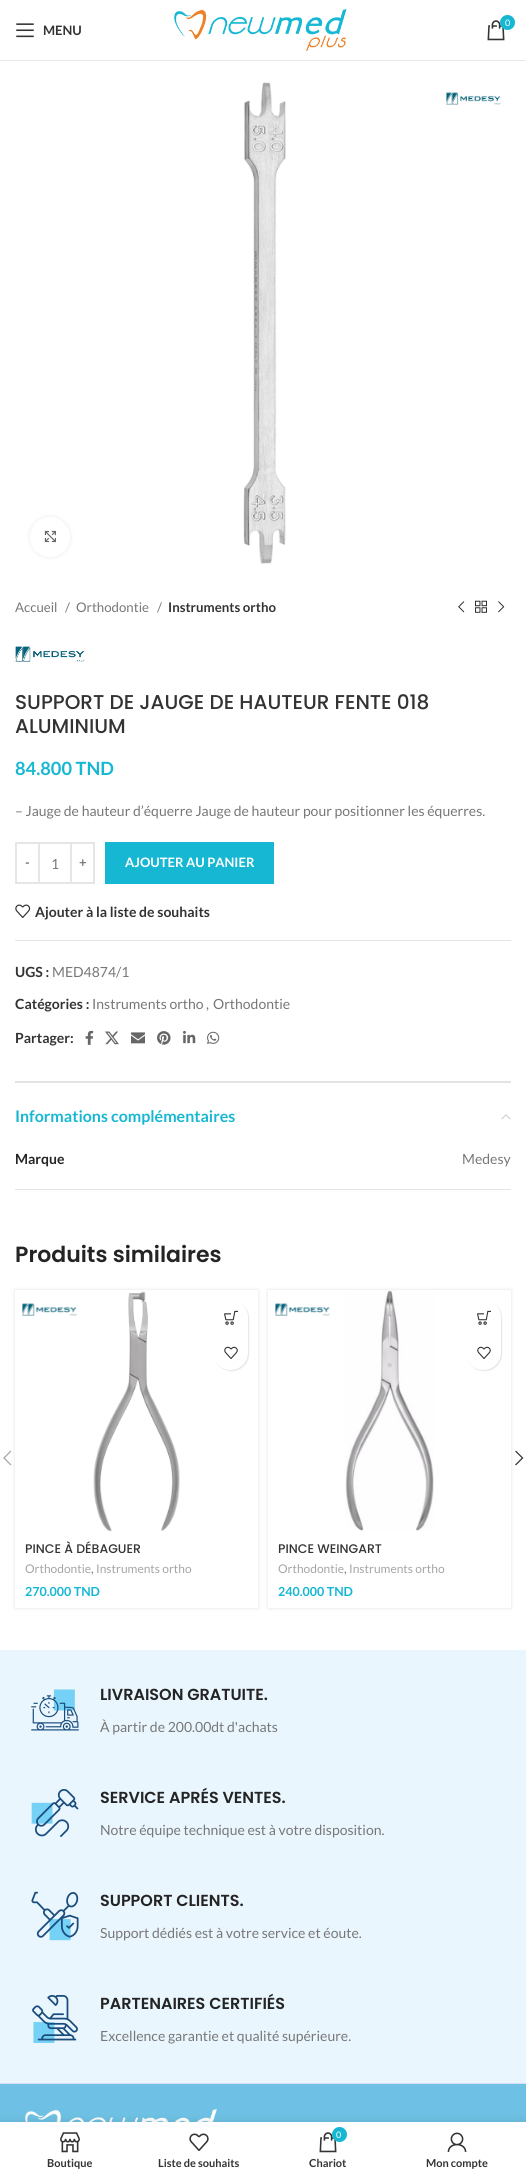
import math
import cairo

surface = cairo.ImageSurface(cairo.Format.RGB24, 526, 2177)
ctx = cairo.Context(surface)
options = cairo.FontOptions()
options.set_hint_metrics(cairo.HintMetrics.OFF)
options.set_hint_style(cairo.HintStyle.NONE)
ctx.set_font_options(options)
ctx.set_miter_limit(4)


def ink(r, g, b):
    ctx.set_source_rgb(r / 255, g / 255, b / 255)


def write(x, y, s, family, size, color, bold=False, italic=False):
    ctx.select_font_face(family, cairo.FontSlant.ITALIC if italic else cairo.FontSlant.NORMAL, cairo.FontWeight.BOLD if bold else cairo.FontWeight.NORMAL)
    ctx.set_font_size(size)
    ink(*color)
    ctx.move_to(x, y)
    ctx.show_text(s)


def block(x, y, w, h, *color):
    ink(*color)
    ctx.rectangle(x, y, w, h)
    ctx.fill()


def round_path(x, y, w, h, r):
    ctx.new_sub_path()
    for i, (u, v) in enumerate([(x + w - r, y + h - r), (x + r, y + h - r), (x + r, y + r), (x + w - r, y + r)]):
        ctx.arc(u, v, r, i * math.pi / 2, (i + 1) * math.pi / 2)
    ctx.close_path()


def blur_box(x, y, w, h, r, blur, alpha):
    ctx.push_group_with_content(cairo.Content.ALPHA)
    ctx.set_operator(cairo.Operator.SOURCE)
    for i in range(15, -16, -2):
        e = blur * i / 6
        if min(w, h) + 2 * e > 0:
            ctx.set_source_rgba(0, 0, 0, alpha * math.erfc((i - 1) / 8.5) / 2)
            round_path(x - e, y - e, w + 2 * e, h + 2 * e, max(0, min(r + e + blur * .6, min(w, h) / 2 + e)))
            ctx.fill()
    ctx.mask(ctx.pop_group())


def paste(path, x, y, w, h):
    ctx.save()
    ctx.set_source_surface(cairo.ImageSurface.create_from_png(path), x, y)
    ctx.rectangle(x, y, w, h)
    ctx.fill()
    ctx.restore()


s1 = dict(family="Lato", size=9, color=(255, 255, 255))
s2 = dict(family="Lato", size=13, color=(51, 51, 51), bold=True)
s3 = dict(family="Lato", size=13.25, color=(119, 119, 119))
s4 = dict(family="Lato", size=13.25, color=(51, 51, 51), bold=True)
s5 = dict(family="Poppins Medium", size=20, color=(51, 51, 51))
s6 = dict(family="Lato", size=18.25, color=(22, 183, 211), bold=True)
s7 = dict(family="Lato", size=14, color=(119, 119, 119))
s8 = dict(family="Lato", size=13, color=(119, 119, 119), bold=True)
s9 = dict(family="Lato", size=13, color=(255, 255, 255), bold=True)
s10 = dict(family="Lato", size=14, color=(51, 51, 51), bold=True)
s11 = dict(family="Lato", size=16, color=(22, 183, 211), bold=True)
s12 = dict(family="Lato", size=14, color=(36, 36, 36), bold=True)
s13 = dict(family="Poppins SemiBold", size=22, color=(36, 36, 36))
s14 = dict(family="Poppins Medium", size=12.5, color=(51, 51, 51))
s15 = dict(family="Lato", size=12, color=(165, 165, 165))
s16 = dict(family="Lato", size=12, color=(119, 119, 119))
s17 = dict(family="Lato", size=12.5, color=(22, 183, 211), bold=True)
s18 = dict(family="Poppins SemiBold", size=16, color=(36, 36, 36))
s19 = dict(family="Lato", size=11, color=(51, 51, 51), bold=True)

ink(255, 255, 255)
ctx.paint()
block(0, 60, 526, 1, 232, 232, 232)
paste("pic1.png", 174, 9, 173, 42)
paste("pic2.png", 487, 20, 18, 21)
ink(22, 183, 211)
ctx.arc(507.5, 22.5, 7.5, 0, 2 * math.pi)
ctx.fill()
write(505, 26, "0", **s1)
paste("pic3.png", 16, 23, 18, 15)
write(43, 35, "MENU", **s2)
paste("pic4.png", 243, 82, 43, 482)
paste("pic5.png", 446, 92, 55, 13)
ink(0, 0, 0)
blur_box(30, 517, 40, 40, 20, 2.5, 0.08)
ink(255, 255, 255)
ctx.arc(50, 537, 20, 0, 2 * math.pi)
ctx.fill()
paste("pic6.png", 44, 530, 12, 13)
write(15, 612, "Accueil", **s3)
write(65, 612, "/", **s3)
write(76, 612, "Orthodontie", **s3)
write(157, 612, "/", **s3)
write(168, 612, "Instruments ortho", **s4)
paste("pic7.png", 458, 601, 7, 12)
paste("pic8.png", 475, 600, 12, 13)
paste("pic9.png", 498, 601, 7, 12)
paste("pic10.png", 15, 646, 70, 16)
write(15, 709, "SUPPORT DE JAUGE DE HAUTEUR FENTE 018", **s5)
write(15, 733, "ALUMINIUM", **s5)
write(15, 775, "84.800 TND", **s6)
write(15, 816, "– Jauge de hauteur d’équerre Jauge de hauteur pour positionner les équerres.", **s7)
ctx.rectangle(16, 843, 23, 40)
ink(230, 230, 230)
ctx.stroke()
write(25, 867, "-", **s8)
block(40, 842, 30, 2, 230, 230, 230)
block(40, 882, 30, 2, 230, 230, 230)
write(51, 869, "1", **s7)
ctx.rectangle(71, 843, 23, 40)
ink(230, 230, 230)
ctx.stroke()
write(79, 867, "+", **s8)
block(105, 842, 169, 42, 22, 183, 211)
write(125, 867, "AJOUTER AU PANIER", **s9)
paste("pic11.png", 15, 904, 16, 14)
write(35, 917, "Ajouter à la liste de souhaits", **s10)
block(15, 940, 496, 1, 228, 228, 228)
write(15, 977, "UGS :", **s10)
write(52, 977, "MED4874/1", **s7)
write(15, 1009, "Catégories :", **s10)
write(92, 1009, "Instruments ortho", **s7)
write(206, 1009, ",", **s7)
write(213, 1009, "Orthodontie", **s7)
write(15, 1043, "Partager:", **s10)
paste("pic12.png", 85, 1030, 9, 15)
paste("pic13.png", 105, 1031, 14, 14)
paste("pic14.png", 131, 1032, 14, 12)
paste("pic15.png", 157, 1031, 14, 14)
paste("pic16.png", 183, 1030, 13, 14)
paste("pic17.png", 207, 1031, 13, 13)
block(15, 1081, 496, 2, 228, 228, 228)
block(15, 1189, 496, 1, 228, 228, 228)
write(15, 1122, "Informations complémentaires", **s11)
paste("pic18.png", 501, 1114, 10, 6)
write(15, 1164, "Marque", **s12)
write(462, 1164, "Medesy", **s7)
write(15, 1262, "Produits similaires", **s13)
ctx.save()
ctx.set_fill_rule(cairo.FillRule.EVEN_ODD)
ctx.new_path()
ctx.move_to(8, 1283)
ctx.line_to(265, 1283)
ctx.line_to(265, 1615)
ctx.line_to(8, 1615)
ctx.close_path()
ctx.move_to(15, 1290)
ctx.line_to(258, 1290)
ctx.line_to(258, 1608)
ctx.line_to(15, 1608)
ctx.close_path()
ctx.clip()
ink(0, 0, 0)
blur_box(15, 1290, 243, 318, 0, 2, 0.12)
ctx.restore()
paste("pic19.png", 3, 1450, 9, 16)
ctx.save()
ctx.set_fill_rule(cairo.FillRule.EVEN_ODD)
ctx.new_path()
ctx.move_to(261, 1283)
ctx.line_to(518, 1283)
ctx.line_to(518, 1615)
ctx.line_to(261, 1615)
ctx.close_path()
ctx.move_to(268, 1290)
ctx.line_to(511, 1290)
ctx.line_to(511, 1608)
ctx.line_to(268, 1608)
ctx.close_path()
ctx.clip()
ink(0, 0, 0)
blur_box(268, 1290, 243, 318, 0, 2, 0.12)
ctx.restore()
paste("pic20.png", 515, 1450, 9, 16)
paste("pic21.png", 22, 1303, 55, 13)
paste("pic22.png", 93, 1291, 87, 241)
ink(0, 0, 0)
blur_box(214, 1301, 35, 70, 17.5, 0.5, 0.1)
ink(255, 255, 255)
round_path(213, 1300, 35, 70, 17.5)
ctx.fill()
paste("pic23.png", 224, 1310, 14, 15)
paste("pic24.png", 224, 1346, 14, 13)
write(25, 1553, "PINCE À DÉBAGUER", **s14)
write(25, 1573, "Orthodontie", **s15)
write(91, 1573, ",", **s16)
write(96, 1573, "Instruments ortho", **s15)
write(25, 1596, "270.000 TND", **s17)
paste("pic21.png", 275, 1303, 55, 13)
paste("pic25.png", 345, 1290, 89, 241)
ink(0, 0, 0)
blur_box(467, 1301, 35, 70, 17.5, 0.5, 0.1)
ink(255, 255, 255)
round_path(466, 1300, 35, 70, 17.5)
ctx.fill()
paste("pic23.png", 477, 1310, 14, 15)
paste("pic24.png", 477, 1346, 14, 13)
write(278, 1553, "PINCE WEINGART", **s14)
write(278, 1573, "Orthodontie", **s15)
write(344, 1573, ",", **s16)
write(349, 1573, "Instruments ortho", **s15)
write(278, 1596, "240.000 TND", **s17)
block(0, 1650, 526, 433, 234, 246, 254)
block(0, 2083, 526, 1, 215, 224, 242)
paste("pic26.png", 31, 1689, 48, 42)
write(100, 1700, "LIVRAISON GRATUITE.", **s18)
write(100, 1732, "À partir de 200.00dt d'achats", **s7)
paste("pic27.png", 31, 1789, 48, 48)
write(100, 1803, "SERVICE APRÉS VENTES.", **s18)
write(100, 1835, "Notre équipe technique est à votre disposition.", **s7)
paste("pic28.png", 31, 1891, 48, 50)
write(100, 1906, "SUPPORT CLIENTS.", **s18)
write(100, 1938, "Support dédiés est à votre service et éoute.", **s7)
paste("pic29.png", 32, 1995, 46, 48)
write(100, 2009, "PARTENAIRES CERTIFIÉS", **s18)
write(100, 2041, "Excellence garantie et qualité supérieure.", **s7)
block(0, 2084, 526, 38, 110, 193, 228)
paste("pic30.png", 25, 2109, 192, 13)
ink(0, 0, 0)
blur_box(0, 2122, 526, 55, 0, 4.5, 0.12)
block(0, 2122, 526, 55, 255, 255, 255)
paste("pic31.png", 60, 2132, 20, 21)
write(47, 2167, "Boutique", **s19)
paste("pic32.png", 189, 2133, 20, 18)
write(158, 2167, "Liste de souhaits", **s19)
paste("pic2.png", 319, 2132, 18, 21)
ink(22, 183, 211)
ctx.arc(339.5, 2134.5, 7.5, 0, 2 * math.pi)
ctx.fill()
write(336, 2138, "0", **s1)
write(309, 2167, "Chariot", **s19)
paste("pic33.png", 447, 2132, 20, 20)
write(426, 2167, "Mon compte", **s19)
surface.write_to_png("screenshot.png")
